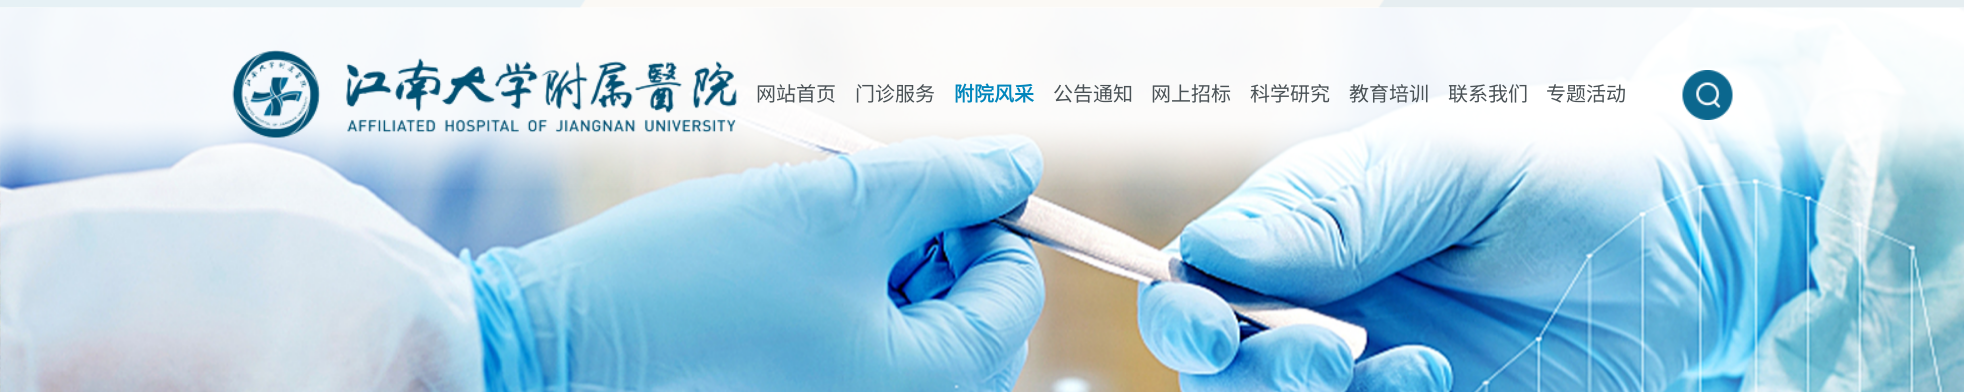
import math
import cairo

surface = cairo.ImageSurface(cairo.Format.RGB24, 1964, 392)
ctx = cairo.Context(surface)
options = cairo.FontOptions()
options.set_hint_metrics(cairo.HintMetrics.OFF)
options.set_hint_style(cairo.HintStyle.NONE)
ctx.set_font_options(options)
ctx.set_miter_limit(4)


def ink(r, g, b):
    ctx.set_source_rgb(r / 255, g / 255, b / 255)


def write(x, y, s, family, size, color, bold=False, italic=False):
    ctx.select_font_face(family, cairo.FontSlant.ITALIC if italic else cairo.FontSlant.NORMAL, cairo.FontWeight.BOLD if bold else cairo.FontWeight.NORMAL)
    ctx.set_font_size(size)
    ink(*color)
    ctx.move_to(x, y)
    ctx.show_text(s)


def paste(path, x, y, w, h):
    ctx.save()
    ctx.set_source_surface(cairo.ImageSurface.create_from_png(path), x, y)
    ctx.rectangle(x, y, w, h)
    ctx.fill()
    ctx.restore()


s1 = dict(family="Noto Sans CJK SC", size=20, color=(74, 82, 86))
s2 = dict(family="Noto Sans CJK SC", size=20, color=(0, 134, 188), bold=True)

ink(255, 255, 255)
ctx.paint()
paste("pic1.png", 0, 0, 1964, 8)
paste("pic2.png", 0, 8, 1964, 384)
paste("pic3.png", 0, 0, 1964, 189)
paste("pic4.png", 232, 50, 505, 88)
write(756, 101, "网站首页", **s1)
write(855, 101, "门诊服务", **s1)
write(954, 101, "附院风采", **s2)
write(1053, 101, "公告通知", **s1)
write(1151, 101, "网上招标", **s1)
write(1250, 101, "科学研究", **s1)
write(1349, 101, "教育培训", **s1)
write(1448, 101, "联系我们", **s1)
write(1546, 101, "专题活动", **s1)
paste("pic5.png", 1682, 70, 51, 50)
surface.write_to_png("screenshot.png")
